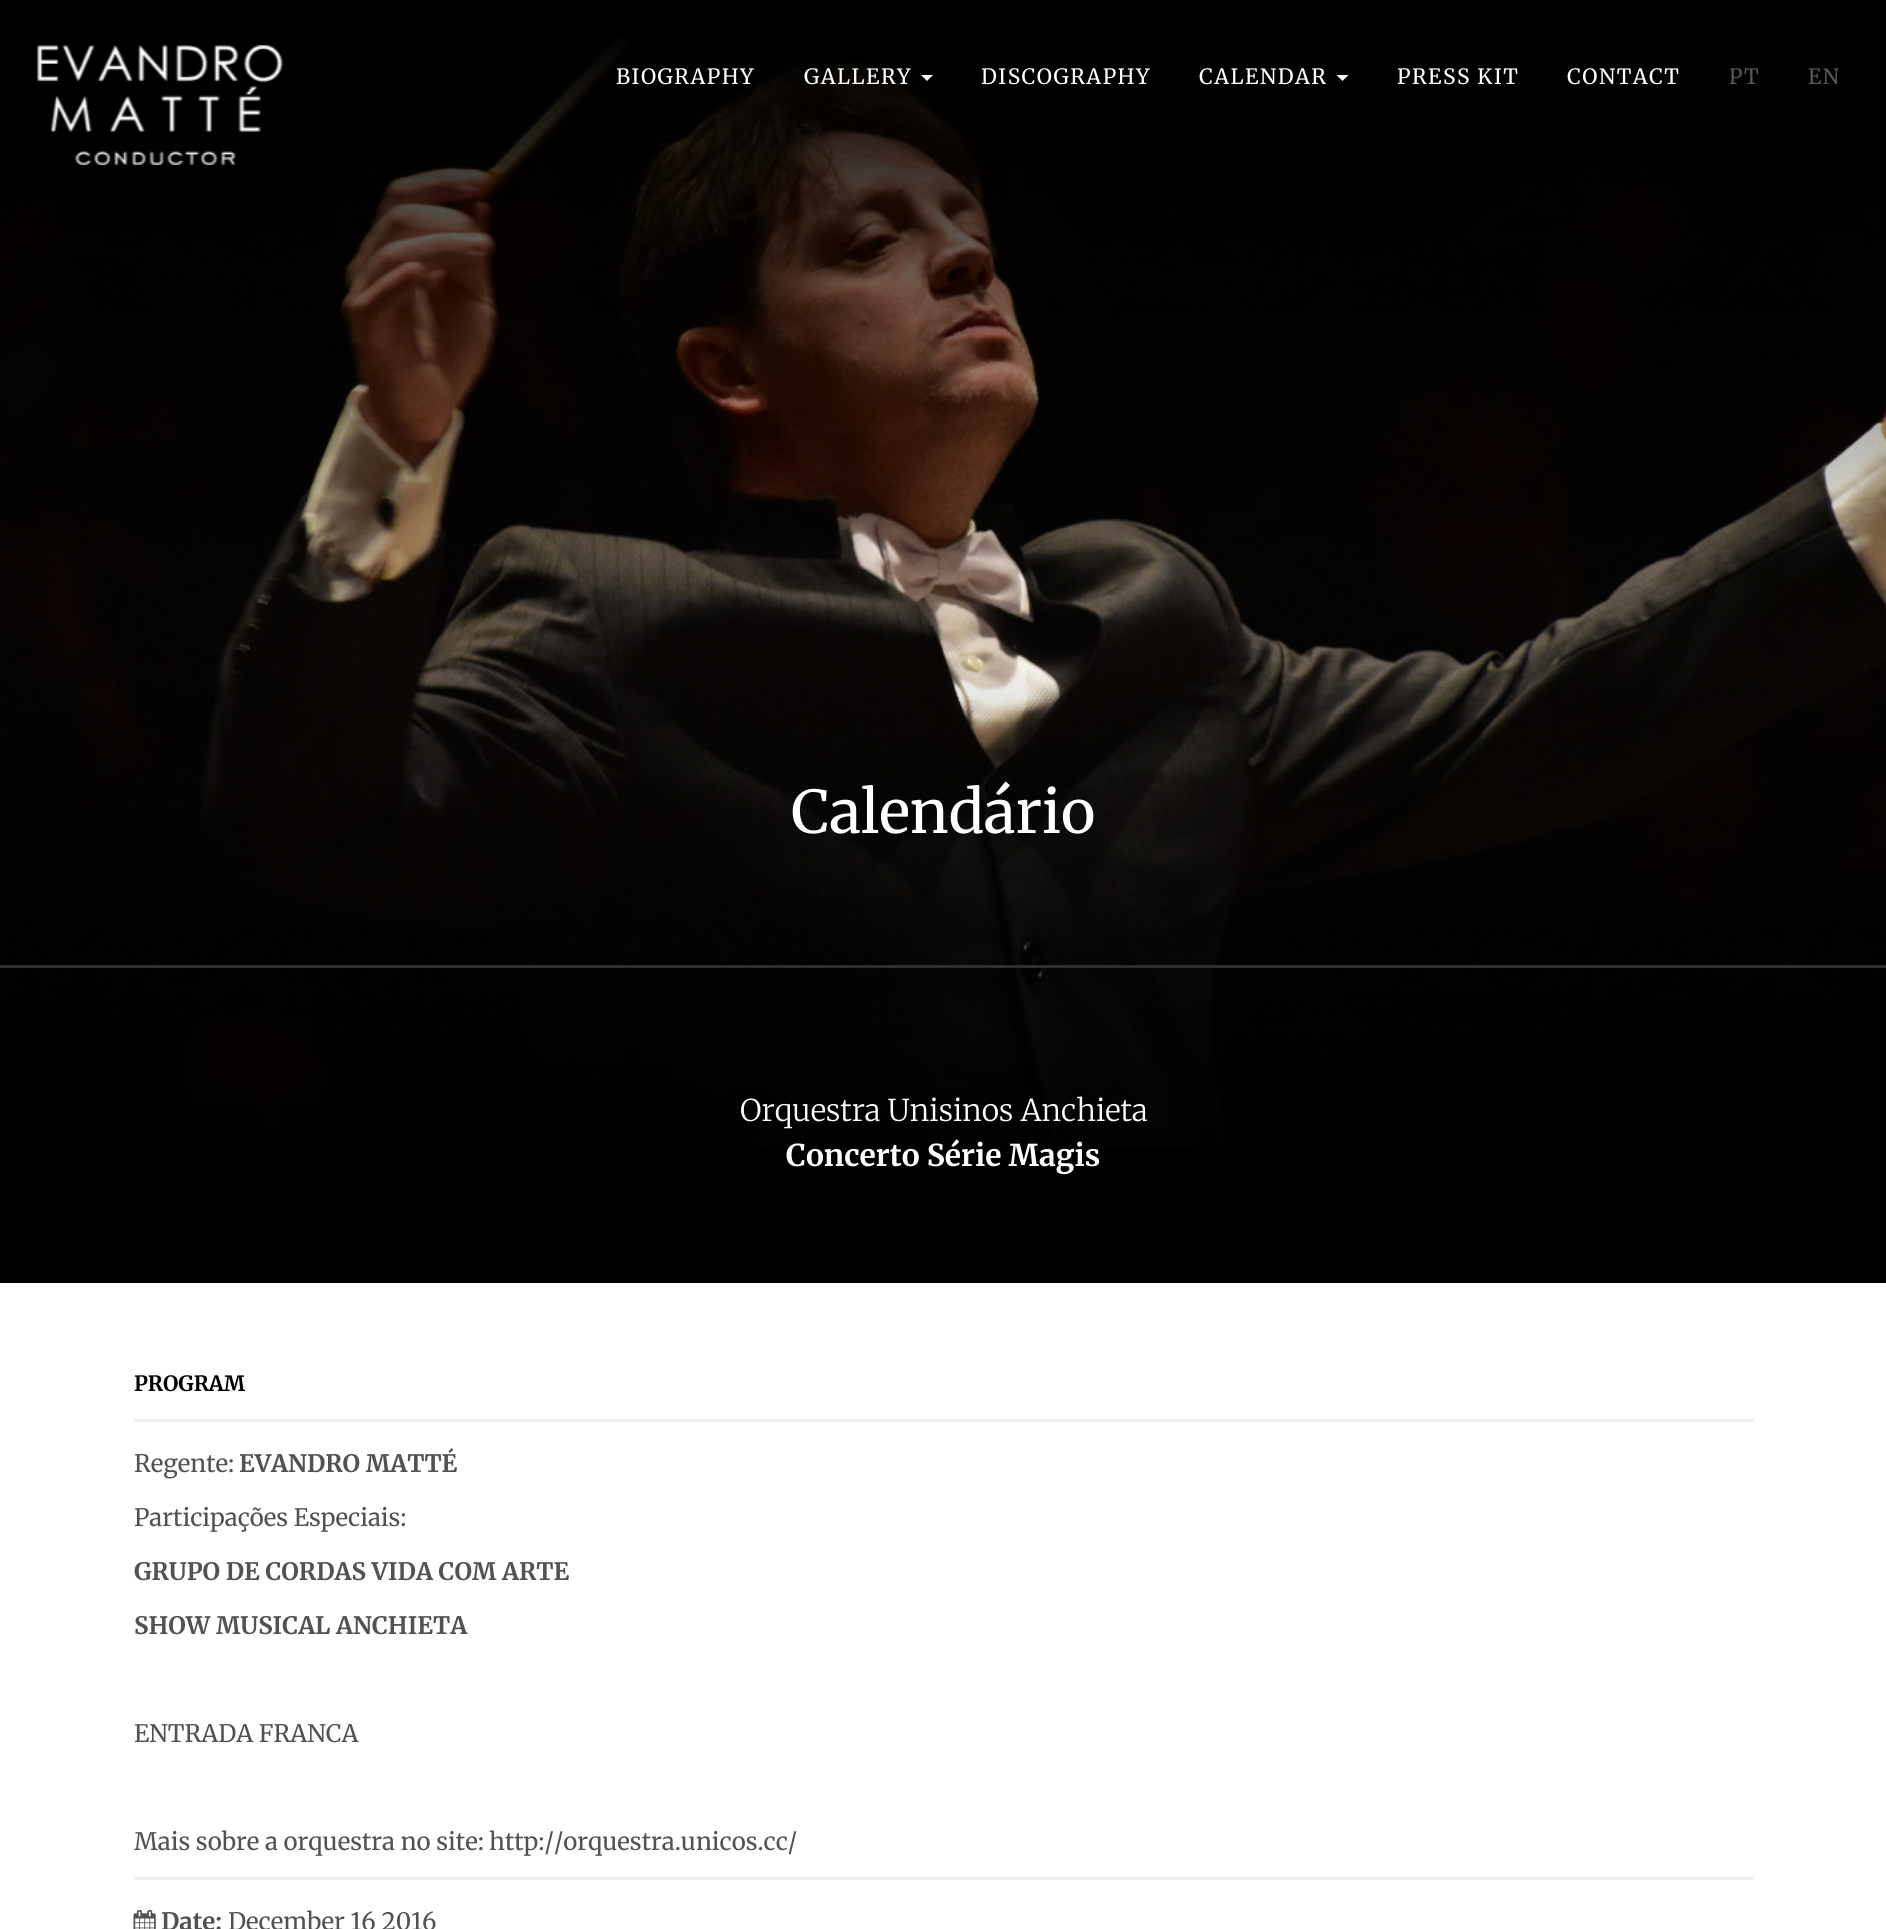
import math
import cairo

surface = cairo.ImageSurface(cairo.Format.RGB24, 1886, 1929)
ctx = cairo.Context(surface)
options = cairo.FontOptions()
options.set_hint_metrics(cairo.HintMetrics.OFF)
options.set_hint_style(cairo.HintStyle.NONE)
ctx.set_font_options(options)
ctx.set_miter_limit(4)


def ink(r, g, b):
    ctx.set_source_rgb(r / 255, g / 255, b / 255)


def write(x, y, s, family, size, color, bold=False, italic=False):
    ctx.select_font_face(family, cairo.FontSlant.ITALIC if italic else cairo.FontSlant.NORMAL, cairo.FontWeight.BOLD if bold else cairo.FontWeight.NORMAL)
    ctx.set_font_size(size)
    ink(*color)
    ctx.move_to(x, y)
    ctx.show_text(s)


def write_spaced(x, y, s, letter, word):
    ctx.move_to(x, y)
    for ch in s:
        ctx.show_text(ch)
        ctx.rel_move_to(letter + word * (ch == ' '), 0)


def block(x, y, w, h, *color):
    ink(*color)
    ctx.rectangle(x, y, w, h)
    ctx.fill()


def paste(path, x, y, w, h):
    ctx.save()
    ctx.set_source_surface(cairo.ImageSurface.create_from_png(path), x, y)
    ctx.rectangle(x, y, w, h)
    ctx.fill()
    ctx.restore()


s1 = dict(family="Merriweather", size=58.75, color=(255, 255, 255))
s2 = dict(family="Merriweather Light", size=30, color=(255, 255, 255))
s3 = dict(family="Merriweather", size=30, color=(255, 255, 255), bold=True)
s4 = dict(family="Merriweather", size=21, color=(0, 0, 0), bold=True)
s5 = dict(family="Merriweather", size=24, color=(82, 82, 82))
s6 = dict(family="Merriweather", size=24, color=(82, 82, 82), bold=True)

ink(255, 255, 255)
ctx.paint()
block(0, 0, 1886, 1283, 0, 0, 0)
paste("pic2.png", 0, 38, 1886, 1110)
paste("pic1.png", 37, 45, 246, 120)
ctx.select_font_face("Merriweather")
ctx.set_font_size(21)
ink(255, 255, 255)
write_spaced(616, 84, "BIOGRAPHY", 1.5, 0)
write_spaced(804, 84, "GALLERY", 1.5, 0)
ctx.new_path()
ctx.move_to(921, 75)
ctx.line_to(933, 75)
ctx.line_to(927, 81)
ctx.close_path()
ctx.fill()
write_spaced(981, 84, "DISCOGRAPHY", 1.5, 0)
write_spaced(1199, 84, "CALENDAR", 1.5, 0)
ctx.new_path()
ctx.move_to(1336.5, 75)
ctx.line_to(1348.5, 75)
ctx.line_to(1342.5, 81)
ctx.close_path()
ctx.fill()
write_spaced(1397, 84, "PRESS KIT", 1.5, 0)
write_spaced(1567, 84, "CONTACT", 1.5, 0)
ink(88, 88, 88)
write_spaced(1729, 84, "PT", 1.5, 0)
write_spaced(1808, 84, "EN", 1.5, 0)
block(0, 965, 1886, 3, 47, 47, 47)
write(791, 833, "Calendário", **s1)
write(740, 1121, "Orquestra Unisinos Anchieta", **s2)
write(786, 1166, "Concerto Série Magis", **s3)
block(134, 1419, 1620, 3, 238, 238, 238)
write(134, 1391, "PROGRAM", **s4)
write(134, 1472, "Regente:", **s5)
write(239, 1472, "EVANDRO MATTÉ", **s6)
write(134, 1526, "Participações Especiais:", **s5)
write(134, 1580, "GRUPO DE CORDAS VIDA COM ARTE", **s6)
write(134, 1634, "SHOW MUSICAL ANCHIETA", **s6)
write(134, 1742, "ENTRADA FRANCA", **s5)
write(134, 1850, "Mais sobre a orquestra no site:", **s5)
write(489, 1850, "http://orquestra.unicos.cc/", **s5)
block(134, 1877, 1620, 3, 238, 238, 238)
paste("pic3.png", 133, 1909, 23, 20)
write(161, 1930, "Date:", **s6)
write(228, 1930, "December 16 2016", **s5)
surface.write_to_png("screenshot.png")
